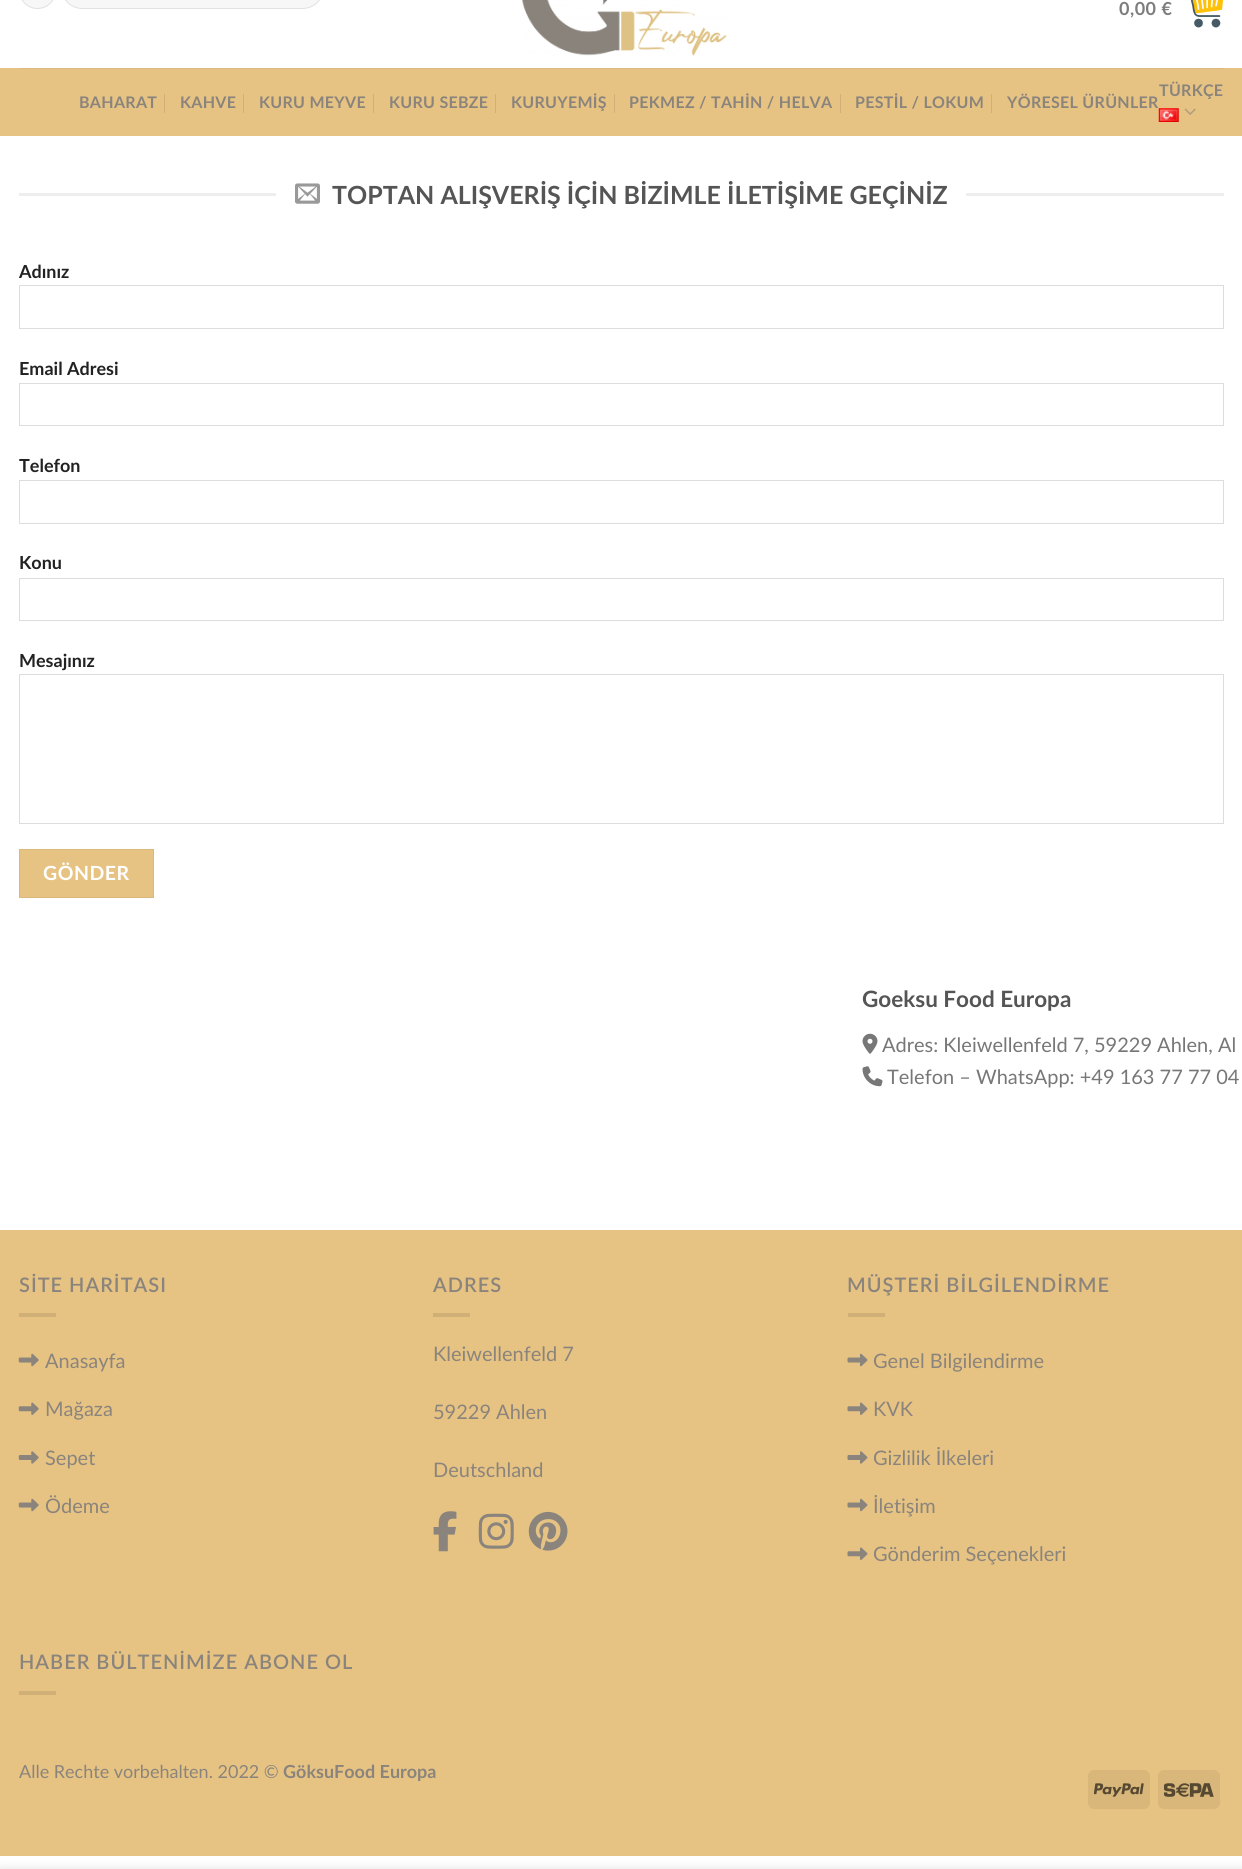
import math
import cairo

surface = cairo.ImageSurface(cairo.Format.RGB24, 1242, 1869)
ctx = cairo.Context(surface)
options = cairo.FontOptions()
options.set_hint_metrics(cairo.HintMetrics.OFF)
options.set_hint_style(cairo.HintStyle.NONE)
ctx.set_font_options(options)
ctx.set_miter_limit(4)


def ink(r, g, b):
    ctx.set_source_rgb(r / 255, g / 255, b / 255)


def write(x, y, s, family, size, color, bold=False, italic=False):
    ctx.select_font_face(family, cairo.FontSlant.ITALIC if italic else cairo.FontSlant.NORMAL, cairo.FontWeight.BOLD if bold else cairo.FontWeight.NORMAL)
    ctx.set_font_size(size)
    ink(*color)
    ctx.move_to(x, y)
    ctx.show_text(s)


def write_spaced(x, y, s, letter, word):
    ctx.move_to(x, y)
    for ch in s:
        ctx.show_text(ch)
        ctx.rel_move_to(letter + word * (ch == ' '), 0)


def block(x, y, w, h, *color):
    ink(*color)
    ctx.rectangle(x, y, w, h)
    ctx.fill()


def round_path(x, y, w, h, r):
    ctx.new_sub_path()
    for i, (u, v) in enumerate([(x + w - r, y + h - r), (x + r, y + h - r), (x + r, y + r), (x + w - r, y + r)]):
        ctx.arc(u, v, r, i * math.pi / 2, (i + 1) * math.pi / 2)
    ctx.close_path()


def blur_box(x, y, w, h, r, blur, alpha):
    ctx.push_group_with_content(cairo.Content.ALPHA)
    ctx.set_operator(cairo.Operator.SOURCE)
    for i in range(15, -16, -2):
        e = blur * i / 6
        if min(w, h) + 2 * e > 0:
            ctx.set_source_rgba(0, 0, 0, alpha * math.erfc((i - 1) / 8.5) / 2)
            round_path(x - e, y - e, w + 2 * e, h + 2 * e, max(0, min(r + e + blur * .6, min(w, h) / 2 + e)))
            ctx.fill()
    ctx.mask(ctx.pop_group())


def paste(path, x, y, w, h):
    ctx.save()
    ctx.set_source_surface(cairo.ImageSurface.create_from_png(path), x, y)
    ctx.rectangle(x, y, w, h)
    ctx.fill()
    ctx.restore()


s1 = dict(family="Lato", size=25, color=(85, 85, 85), bold=True)
s2 = dict(family="Lato", size=18, color=(34, 34, 34), bold=True)
s3 = dict(family="Lato", size=22.5, color=(85, 85, 85), bold=True)
s4 = dict(family="Lato", size=20, color=(119, 119, 119))
s5 = dict(family="Lato", size=20, color=(138, 132, 124))
s6 = dict(family="Lato", size=18, color=(138, 132, 124))
s7 = dict(family="Lato", size=18, color=(138, 132, 124), bold=True)

ink(255, 255, 255)
ctx.paint()
ink(247, 247, 247)
round_path(19, -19, 37, 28, 18.5)
ctx.fill()
round_path(19.5, -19.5, 36, 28, 18)
ctx.set_source_rgba(0, 0, 0, 0.09)
ctx.set_line_width(1)
ctx.stroke()
ink(247, 247, 247)
round_path(61, -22, 263, 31, 21.5)
ctx.fill()
round_path(61.5, -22.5, 262, 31, 21)
ctx.set_source_rgba(0, 0, 0, 0.09)
ctx.stroke()
paste("pic1.png", 522, 0, 205, 56)
ctx.select_font_face("Lato", cairo.FontSlant.NORMAL, cairo.FontWeight.BOLD)
ctx.set_font_size(18)
ink(125, 125, 125)
write_spaced(1119, 15, "0,00 €", 0.5, 0)
paste("pic2.png", 1190, 0, 33, 28)
block(0, 68, 1242, 68, 231, 195, 131)
block(19, 68, 1205, 1, 220, 187, 130)
ctx.set_font_size(16)
ink(138, 132, 124)
write_spaced(1159, 96, "TÜRKÇE", 0.3, 0)
write_spaced(1007, 108, "YÖRESEL ÜRÜNLER", 0.3, 0)
paste("pic3.png", 1158, 108, 21, 14)
paste("pic4.png", 1184, 108, 12, 7)
write_spaced(79, 108, "BAHARAT", 0.3, 0)
block(164, 94, 1, 19, 208, 176, 118)
ink(138, 132, 124)
write_spaced(180, 108, "KAHVE", 0.3, 0)
block(243, 94, 1, 19, 208, 176, 118)
ink(138, 132, 124)
write_spaced(259, 108, "KURU MEYVE", 0.3, 0)
block(373, 94, 1, 19, 208, 176, 118)
ink(138, 132, 124)
write_spaced(389, 108, "KURU SEBZE", 0.3, 0)
block(495, 94, 1, 19, 208, 176, 118)
ink(138, 132, 124)
write_spaced(511, 108, "KURUYEMİŞ", 0.3, 0)
block(614, 94, 1, 19, 208, 176, 118)
ink(138, 132, 124)
write_spaced(629, 108, "PEKMEZ / TAHİN / HELVA", 0.3, 0)
block(840, 94, 1, 19, 208, 176, 118)
ink(138, 132, 124)
write_spaced(855, 108, "PESTİL / LOKUM", 0.3, 0)
block(991, 94, 1, 19, 208, 176, 118)
block(19, 193, 257, 3, 238, 238, 238)
paste("pic5.png", 295, 183, 25, 21)
write(332, 204, "TOPTAN ALIŞVERİŞ İÇİN BİZİMLE İLETİŞİME GEÇİNİZ", **s1)
block(966, 193, 258, 3, 238, 238, 238)
write(19, 278, "Adınız", **s2)
ctx.rectangle(19.5, 285.5, 1204, 43)
ink(221, 221, 221)
ctx.stroke()
write(19, 375, "Email Adresi", **s2)
ctx.rectangle(19.5, 383.5, 1204, 42)
ink(221, 221, 221)
ctx.stroke()
write(19, 472, "Telefon", **s2)
ctx.rectangle(19.5, 480.5, 1204, 43)
ink(221, 221, 221)
ctx.stroke()
write(19, 569, "Konu", **s2)
ctx.rectangle(19.5, 578.5, 1204, 42)
ink(221, 221, 221)
ctx.stroke()
write(19, 667, "Mesajınız", **s2)
ctx.rectangle(19.5, 674.5, 1204, 149)
ink(221, 221, 221)
ctx.stroke()
ink(231, 195, 131)
ctx.rectangle(19.5, 849.5, 134, 48)
ctx.fill_preserve()
ink(219, 185, 124)
ctx.stroke()
ctx.set_font_size(19.5)
ink(255, 255, 255)
write_spaced(43, 880, "GÖNDER", 0.5, 0)
write(862, 1007, "Goeksu Food Europa", **s3)
paste("pic6.png", 862, 1033, 16, 21)
write(882, 1052, "Adres: Kleiwellenfeld 7, 59229 Ahlen, Al", **s4)
paste("pic7.png", 862, 1066, 21, 21)
write(887, 1084, "Telefon – WhatsApp: +49 163 77 77 04", **s4)
block(0, 1230, 1242, 626, 231, 195, 131)
ctx.select_font_face("Lato SemiBold")
ink(138, 132, 124)
write_spaced(19, 1292, "SİTE HARİTASI", 1, 0)
block(19, 1313, 37, 4, 208, 176, 118)
paste("pic8.png", 18, 1353, 21, 14)
write(45, 1368, "Anasayfa", **s5)
paste("pic9.png", 18, 1402, 21, 13)
write(45, 1416, "Mağaza", **s5)
paste("pic10.png", 18, 1451, 21, 13)
write(45, 1465, "Sepet", **s5)
paste("pic8.png", 18, 1498, 21, 14)
write(45, 1513, "Ödeme", **s5)
ctx.select_font_face("Lato SemiBold")
write_spaced(433, 1292, "ADRES", 1, 0)
block(433, 1313, 37, 4, 208, 176, 118)
write(433, 1361, "Kleiwellenfeld 7", **s5)
write(433, 1419, "59229 Ahlen", **s5)
write(433, 1477, "Deutschland", **s5)
paste("pic11.png", 433, 1511, 24, 41)
paste("pic12.png", 478, 1513, 36, 36)
paste("pic13.png", 528, 1511, 40, 40)
ctx.select_font_face("Lato SemiBold")
write_spaced(847, 1292, "MÜŞTERİ BİLGİLENDİRME", 1, 0)
block(848, 1313, 37, 4, 208, 176, 118)
paste("pic14.png", 847, 1353, 21, 14)
write(873, 1368, "Genel Bilgilendirme", **s5)
paste("pic15.png", 847, 1402, 21, 13)
write(873, 1416, "KVK", **s5)
paste("pic16.png", 847, 1451, 21, 13)
write(873, 1465, "Gizlilik İlkeleri", **s5)
paste("pic14.png", 847, 1498, 21, 14)
write(873, 1513, "İletişim", **s5)
paste("pic15.png", 847, 1547, 21, 13)
write(873, 1561, "Gönderim Seçenekleri", **s5)
ctx.select_font_face("Lato SemiBold")
write_spaced(19, 1669, "HABER BÜLTENİMİZE ABONE OL", 1, 0)
block(19, 1691, 37, 4, 208, 176, 118)
write(19, 1778, "Alle Rechte vorbehalten. 2022 ©", **s6)
write(283, 1778, "GöksuFood Europa", **s7)
ink(217, 183, 123)
round_path(1088, 1770, 62, 39, 6)
ctx.fill()
paste("pic17.png", 1094, 1783, 50, 14)
round_path(1158, 1770, 62, 39, 6)
ctx.fill()
paste("pic18.png", 1164, 1783, 50, 14)
ink(0, 0, 0)
blur_box(0, 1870, 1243, 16, 0, 5.5, 0.14)
surface.write_to_png("screenshot.png")
